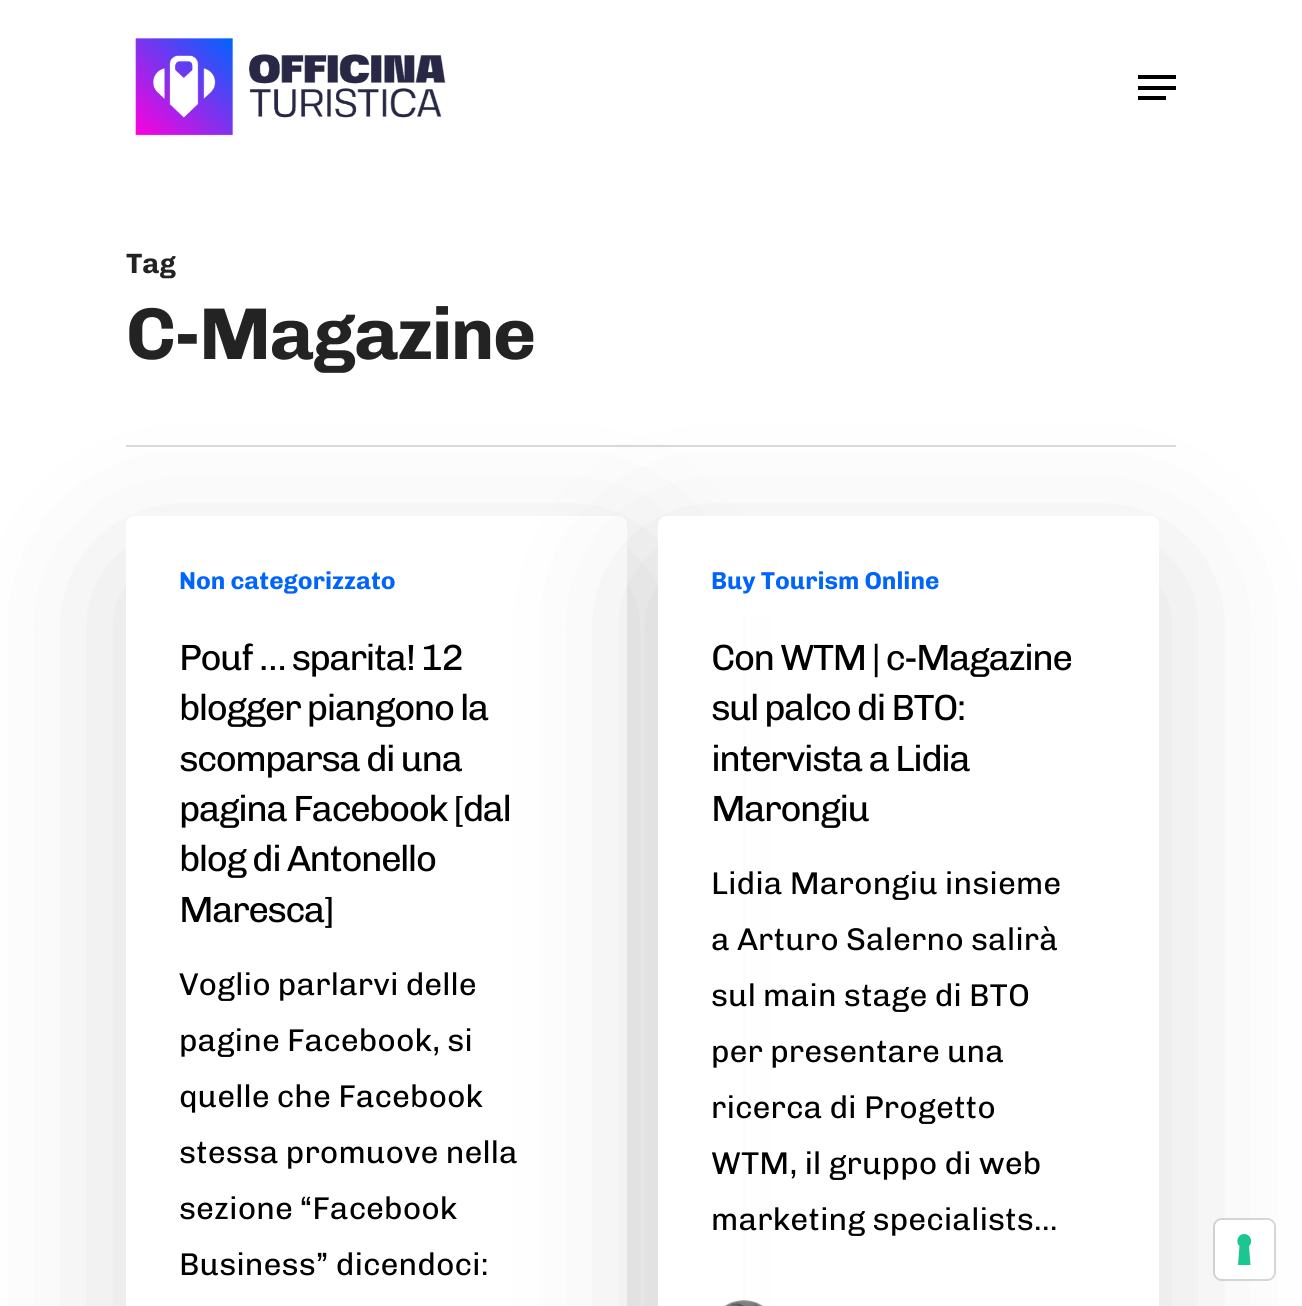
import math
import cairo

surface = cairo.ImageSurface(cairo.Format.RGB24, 1302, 1306)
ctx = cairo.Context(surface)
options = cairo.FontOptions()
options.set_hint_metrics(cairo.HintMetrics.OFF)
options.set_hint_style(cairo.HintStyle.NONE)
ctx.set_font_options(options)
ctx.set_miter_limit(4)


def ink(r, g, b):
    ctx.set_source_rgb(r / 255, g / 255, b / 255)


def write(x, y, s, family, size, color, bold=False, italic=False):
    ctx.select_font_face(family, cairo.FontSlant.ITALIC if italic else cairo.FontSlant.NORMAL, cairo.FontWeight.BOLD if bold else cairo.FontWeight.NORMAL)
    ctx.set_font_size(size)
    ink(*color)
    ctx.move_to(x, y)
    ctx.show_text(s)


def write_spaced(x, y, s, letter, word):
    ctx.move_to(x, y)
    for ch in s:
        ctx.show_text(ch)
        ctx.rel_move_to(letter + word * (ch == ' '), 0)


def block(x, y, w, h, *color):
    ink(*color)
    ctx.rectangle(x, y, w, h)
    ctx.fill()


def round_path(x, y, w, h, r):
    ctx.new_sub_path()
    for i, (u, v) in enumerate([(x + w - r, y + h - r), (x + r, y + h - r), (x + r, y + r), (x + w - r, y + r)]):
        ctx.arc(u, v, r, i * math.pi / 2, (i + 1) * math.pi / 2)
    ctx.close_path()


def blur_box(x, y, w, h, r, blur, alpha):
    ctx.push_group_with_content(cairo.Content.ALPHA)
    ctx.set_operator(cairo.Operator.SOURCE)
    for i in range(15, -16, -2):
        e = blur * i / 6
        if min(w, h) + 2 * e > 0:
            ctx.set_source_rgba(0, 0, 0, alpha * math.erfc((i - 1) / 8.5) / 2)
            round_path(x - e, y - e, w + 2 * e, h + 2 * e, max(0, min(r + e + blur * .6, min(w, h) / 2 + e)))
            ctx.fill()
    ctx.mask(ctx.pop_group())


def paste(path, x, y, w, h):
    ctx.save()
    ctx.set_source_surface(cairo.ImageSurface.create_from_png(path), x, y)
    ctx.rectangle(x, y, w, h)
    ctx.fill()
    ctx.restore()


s1 = dict(family="Chivo", size=28, color=(35, 35, 35), bold=True)
s2 = dict(family="Chivo", size=24.5, color=(0, 100, 255), bold=True)
s3 = dict(family="Chivo", size=31.5, color=(0, 0, 0))

ink(255, 255, 255)
ctx.paint()
paste("pic1.png", 135, 38, 311, 98)
block(1138, 75, 38, 4, 0, 0, 0)
block(1138, 96, 28, 4, 0, 0, 0)
block(1138, 86, 38, 4, 0, 0, 0)
ctx.save()
ctx.set_fill_rule(cairo.FillRule.EVEN_ODD)
ctx.new_path()
ctx.move_to(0, 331)
ctx.line_to(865, 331)
ctx.line_to(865, 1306)
ctx.line_to(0, 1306)
ctx.close_path()
ctx.move_to(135, 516)
ctx.line_to(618, 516)
ctx.curve_to(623, 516, 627, 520, 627, 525)
ctx.line_to(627, 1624)
ctx.curve_to(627, 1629, 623, 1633, 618, 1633)
ctx.line_to(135, 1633)
ctx.curve_to(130, 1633, 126, 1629, 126, 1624)
ctx.line_to(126, 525)
ctx.curve_to(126, 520, 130, 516, 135, 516)
ctx.close_path()
ctx.clip()
ink(0, 0, 0)
blur_box(126, 569, 501, 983, 9, 79, 0.14)
ctx.restore()
ctx.save()
ctx.set_fill_rule(cairo.FillRule.EVEN_ODD)
ctx.new_path()
ctx.move_to(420, 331)
ctx.line_to(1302, 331)
ctx.line_to(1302, 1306)
ctx.line_to(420, 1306)
ctx.close_path()
ctx.move_to(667, 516)
ctx.line_to(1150, 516)
ctx.curve_to(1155, 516, 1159, 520, 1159, 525)
ctx.line_to(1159, 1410)
ctx.curve_to(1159, 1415, 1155, 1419, 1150, 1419)
ctx.line_to(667, 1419)
ctx.curve_to(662, 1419, 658, 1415, 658, 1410)
ctx.line_to(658, 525)
ctx.curve_to(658, 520, 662, 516, 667, 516)
ctx.close_path()
ctx.clip()
ink(0, 0, 0)
blur_box(658, 569, 501, 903, 9, 79, 0.14)
ctx.restore()
block(126, 445, 1050, 2, 216, 216, 216)
write(126, 273, "Tag", **s1)
ctx.set_font_size(73.5)
write_spaced(126, 359, "C-Magazine", -1.75, 0)
write(179, 589, "Non categorizzato", **s2)
ctx.select_font_face("Chivo")
ctx.set_font_size(36.5)
ink(0, 0, 0)
write_spaced(179, 670, "Pouf … sparita! 12", -1.75, 0)
write_spaced(179, 720, "blogger piangono la", -1.75, 0)
write_spaced(179, 771, "scomparsa di una", -1.75, 0)
write_spaced(179, 821, "pagina Facebook [dal", -1.75, 0)
write_spaced(179, 871, "blog di Antonello", -1.75, 0)
write_spaced(179, 922, "Maresca]", -1.75, 0)
write(179, 995, "Voglio parlarvi delle", **s3)
write(179, 1051, "pagine Facebook, si", **s3)
write(179, 1107, "quelle che Facebook", **s3)
write(179, 1163, "stessa promuove nella", **s3)
write(179, 1219, "sezione “Facebook", **s3)
write(179, 1275, "Business” dicendoci:", **s3)
ink(255, 255, 255)
ctx.new_path()
ctx.move_to(667, 516)
ctx.line_to(1134, 516)
ctx.line_to(1134, 616)
ctx.line_to(658, 616)
ctx.line_to(658, 525)
ctx.curve_to(658, 520, 662, 516, 667, 516)
ctx.close_path()
ctx.fill()
write(711, 589, "Buy Tourism Online", **s2)
block(658, 616, 85, 690, 255, 255, 255)
ctx.select_font_face("Chivo")
ctx.set_font_size(36.5)
ink(0, 0, 0)
write_spaced(711, 670, "Con WTM | c-Magazine", -1.75, 0)
write_spaced(711, 720, "sul palco di BTO:", -1.75, 0)
write_spaced(711, 771, "intervista a Lidia", -1.75, 0)
write_spaced(711, 821, "Marongiu", -1.75, 0)
write(711, 894, "Lidia Marongiu insieme", **s3)
write(711, 950, "a Arturo Salerno salirà", **s3)
write(711, 1006, "sul main stage di BTO", **s3)
write(711, 1062, "per presentare una", **s3)
write(711, 1118, "ricerca di Progetto", **s3)
write(711, 1174, "WTM, il gruppo di web", **s3)
write(711, 1230, "marketing specialists…", **s3)
paste("pic2.png", 724, 1300, 40, 6)
round_path(1214, 1219, 61, 61, 8)
ctx.set_source_rgba(0, 0, 0, 0.15)
ctx.stroke()
ink(255, 255, 255)
round_path(1215, 1220, 59, 59, 7)
ctx.fill()
ink(28, 198, 145)
ctx.set_fill_rule(cairo.FillRule.EVEN_ODD)
ctx.new_path()
ctx.move_to(1244, 1234)
ctx.curve_to(1250.5, 1234, 1253.5, 1242, 1249, 1246)
ctx.line_to(1250.5, 1265)
ctx.line_to(1238, 1265)
ctx.line_to(1239.5, 1246)
ctx.curve_to(1235, 1242, 1238, 1234, 1244, 1234)
ctx.close_path()
ctx.fill()
surface.write_to_png("screenshot.png")
